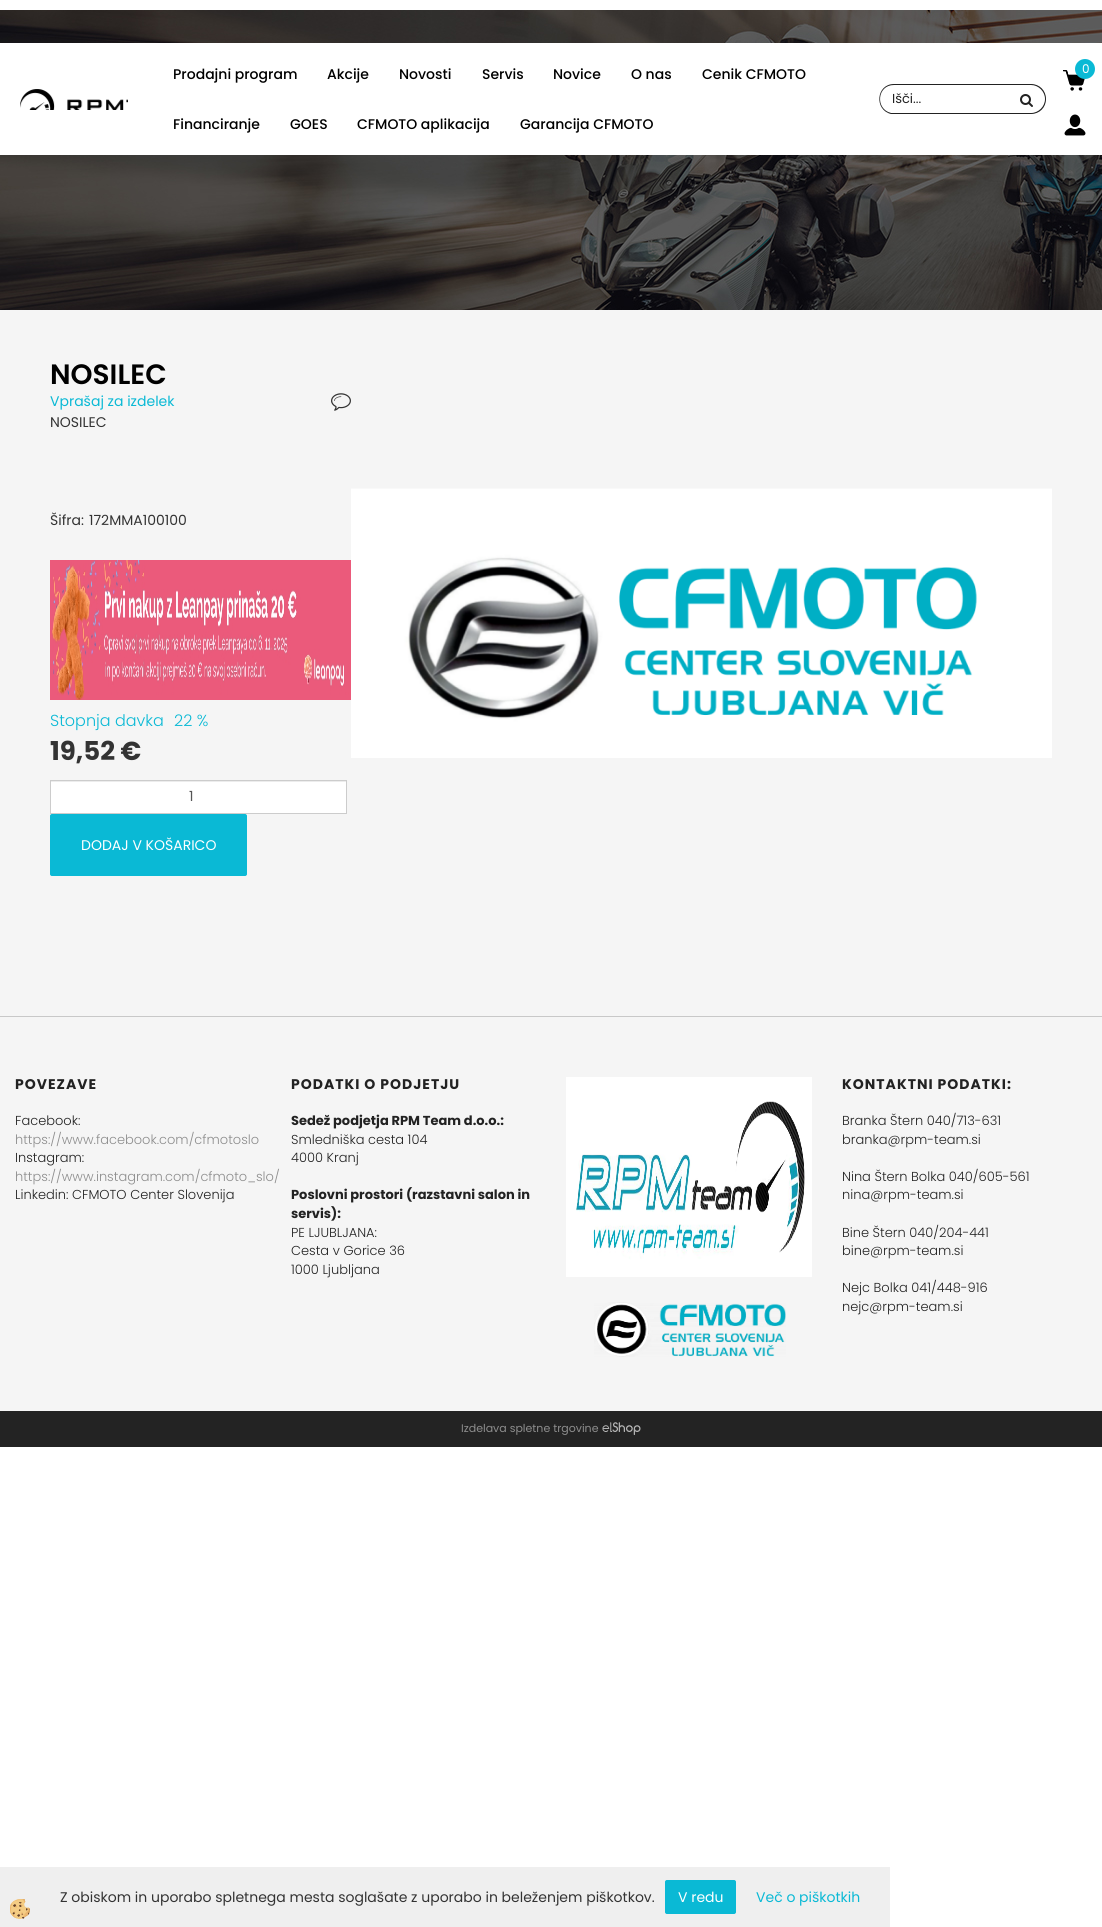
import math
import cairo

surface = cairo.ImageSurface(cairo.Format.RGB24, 1102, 1927)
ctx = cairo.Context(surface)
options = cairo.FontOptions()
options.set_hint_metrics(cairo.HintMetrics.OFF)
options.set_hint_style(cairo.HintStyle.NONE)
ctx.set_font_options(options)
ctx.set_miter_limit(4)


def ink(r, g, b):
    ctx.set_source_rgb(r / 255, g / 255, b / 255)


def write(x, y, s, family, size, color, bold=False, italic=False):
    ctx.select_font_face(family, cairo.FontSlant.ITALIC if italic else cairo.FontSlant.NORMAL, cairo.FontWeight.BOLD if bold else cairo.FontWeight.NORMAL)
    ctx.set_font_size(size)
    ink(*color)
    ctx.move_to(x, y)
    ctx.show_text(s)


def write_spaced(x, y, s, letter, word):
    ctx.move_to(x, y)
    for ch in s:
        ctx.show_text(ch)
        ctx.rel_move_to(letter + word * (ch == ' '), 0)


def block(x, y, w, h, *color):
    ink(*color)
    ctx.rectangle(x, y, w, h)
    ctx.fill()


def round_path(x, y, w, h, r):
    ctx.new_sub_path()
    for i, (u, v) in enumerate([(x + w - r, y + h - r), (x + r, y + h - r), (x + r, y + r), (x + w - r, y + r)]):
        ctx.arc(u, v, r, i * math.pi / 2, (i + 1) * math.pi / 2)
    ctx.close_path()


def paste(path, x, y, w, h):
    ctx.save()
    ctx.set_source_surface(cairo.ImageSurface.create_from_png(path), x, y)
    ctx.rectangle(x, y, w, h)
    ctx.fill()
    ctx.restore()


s1 = dict(family="Poppins Medium", size=14, color=(0, 0, 0))
s2 = dict(family="Poppins", size=13, color=(34, 34, 34))
s3 = dict(family="Poppins", size=12, color=(255, 255, 255))
s4 = dict(family="Poppins SemiBold", size=28, color=(0, 0, 0))
s5 = dict(family="Poppins", size=14, color=(10, 185, 213))
s6 = dict(family="Poppins", size=14, color=(51, 51, 51))
s7 = dict(family="Poppins Light", size=16, color=(10, 185, 213))
s8 = dict(family="Poppins", size=26, color=(51, 51, 51), bold=True)
s9 = dict(family="Poppins", size=14, color=(85, 85, 85))
s10 = dict(family="Poppins", size=14, color=(255, 255, 255))
s11 = dict(family="Poppins Light", size=13, color=(34, 34, 34))
s12 = dict(family="Poppins Light", size=13, color=(141, 141, 141))
s13 = dict(family="Poppins", size=13, color=(34, 34, 34), bold=True)
s14 = dict(family="Poppins", size=11, color=(141, 141, 141))

ink(255, 255, 255)
ctx.paint()
paste("pic1.png", 0, 10, 1102, 300)
block(0, 43, 1102, 112, 255, 255, 255)
paste("pic2.png", 20, 89, 108, 21)
write(173, 79, "Prodajni program", **s1)
write(327, 79, "Akcije", **s1)
write(399, 79, "Novosti", **s1)
write(482, 79, "Servis", **s1)
write(553, 79, "Novice", **s1)
write(631, 79, "O nas", **s1)
write(702, 79, "Cenik CFMOTO", **s1)
write(173, 129, "Financiranje", **s1)
write(290, 129, "GOES", **s1)
write(357, 129, "CFMOTO aplikacija", **s1)
write(520, 129, "Garancija CFMOTO", **s1)
ink(34, 34, 34)
ctx.set_fill_rule(cairo.FillRule.EVEN_ODD)
ctx.new_path()
ctx.move_to(1008, 84)
ctx.line_to(1031, 84)
ctx.curve_to(1039.5, 84, 1046, 90.5, 1046, 99)
ctx.curve_to(1046, 107.5, 1039.5, 114, 1031, 114)
ctx.line_to(1008, 114)
ctx.close_path()
ctx.move_to(1008, 85)
ctx.line_to(1031, 85)
ctx.curve_to(1038.5, 85, 1045, 91.5, 1045, 99)
ctx.curve_to(1045, 106.5, 1038.5, 113, 1031, 113)
ctx.line_to(1008, 113)
ctx.close_path()
ctx.fill()
ctx.new_path()
ctx.move_to(894, 84)
ctx.line_to(1009, 84)
ctx.line_to(1009, 114)
ctx.line_to(891, 114)
ctx.curve_to(874, 110, 876, 84, 894, 84)
ctx.close_path()
ctx.move_to(894, 85)
ctx.line_to(1009, 85)
ctx.line_to(1009, 113)
ctx.line_to(891, 113)
ctx.curve_to(875, 109, 877, 85, 894, 85)
ctx.close_path()
ctx.fill()
write(892, 103, "Išči...", **s2)
paste("pic3.png", 1020, 94, 13, 13)
paste("pic4.png", 1063, 70, 22, 21)
ink(10, 185, 213)
ctx.arc(1085, 69, 10, 0, 2 * math.pi)
ctx.fill()
write(1082, 73, "0", **s3)
paste("pic5.png", 1064, 114, 22, 22)
block(0, 310, 1102, 1101, 245, 245, 245)
write(50, 384, "NOSILEC", **s4)
write(50, 406, "Vprašaj za izdelek", **s5)
paste("pic6.png", 331, 393, 20, 18)
write(50, 427, "NOSILEC", **s6)
write(50, 525, "Šifra:", **s6)
write(89, 525, "172MMA100100", **s6)
paste("pic7.png", 50, 560, 301, 140)
write(50, 726, "Stopnja davka", **s7)
write(174, 726, "22 %", **s7)
write(50, 760, "19,52 €", **s8)
block(51, 782, 295, 31, 255, 255, 255)
block(51, 781, 295, 1, 236, 236, 236)
ctx.rectangle(50.5, 780.5, 296, 33)
ink(204, 204, 204)
ctx.set_line_width(1)
ctx.stroke()
write(189, 801, "1", **s9)
ink(10, 185, 213)
round_path(50.5, 814.5, 196, 61, 1.5)
ctx.fill_preserve()
ctx.stroke()
write(81, 850, "DODAJ V KOŠARICO", **s10)
paste("pic8.png", 351, 488, 701, 270)
block(0, 1016, 1102, 1, 200, 200, 200)
ctx.select_font_face("Poppins", cairo.FontSlant.NORMAL, cairo.FontWeight.BOLD)
ink(34, 34, 34)
write_spaced(15, 1089, "POVEZAVE", 1, 0)
write(15, 1125, "Facebook:", **s11)
write(15, 1144, "https://www.facebook.com/cfmotoslo", **s12)
write(15, 1162, "Instagram:", **s11)
write(15, 1181, "https://www.instagram.com/cfmoto_slo/", **s12)
write(15, 1199, "Linkedin: CFMOTO Center Slovenija", **s11)
ctx.select_font_face("Poppins", cairo.FontSlant.NORMAL, cairo.FontWeight.BOLD)
ctx.set_font_size(14)
write_spaced(291, 1089, "PODATKI O PODJETJU", 1, 0)
write(291, 1125, "Sedež podjetja RPM Team d.o.o.:", **s13)
write(291, 1144, "Smledniška cesta 104", **s11)
write(291, 1162, "4000 Kranj", **s11)
write(291, 1199, "Poslovni prostori (razstavni salon in", **s13)
write(291, 1218, "servis):", **s13)
write(291, 1237, "PE LJUBLJANA:", **s11)
write(291, 1255, "Cesta v Gorice 36", **s11)
write(291, 1274, "1000 Ljubljana", **s11)
paste("pic9.png", 566, 1077, 246, 200)
paste("pic10.png", 594, 1302, 192, 55)
ctx.select_font_face("Poppins", cairo.FontSlant.NORMAL, cairo.FontWeight.BOLD)
ctx.set_font_size(14)
write_spaced(842, 1089, "KONTAKTNI PODATKI:", 1, 0)
write(842, 1125, "Branka Štern 040/713-631", **s11)
write(842, 1144, "branka@rpm-team.si", **s11)
write(842, 1181, "Nina Štern Bolka 040/605-561", **s11)
write(842, 1199, "nina@rpm-team.si", **s11)
write(842, 1237, "Bine Štern 040/204-441", **s11)
write(842, 1255, "bine@rpm-team.si", **s11)
write(842, 1292, "Nejc Bolka 041/448-916", **s11)
write(842, 1311, "nejc@rpm-team.si", **s11)
block(0, 1411, 1102, 36, 35, 35, 35)
write(461, 1432, "Izdelava spletne trgovine", **s14)
paste("pic11.png", 602, 1422, 39, 13)
block(0, 1867, 890, 60, 239, 239, 239)
paste("pic12.png", 10, 1899, 20, 20)
write(60, 1902, "Z obiskom in uporabo spletnega mesta soglašate z uporabo in beleženjem piškotkov.", **s6)
ink(10, 185, 213)
round_path(665.5, 1880.5, 70, 33, 1.5)
ctx.fill_preserve()
ctx.stroke()
write(678, 1902, "V redu", **s10)
write(756, 1902, "Več o piškotkih", **s5)
surface.write_to_png("screenshot.png")
